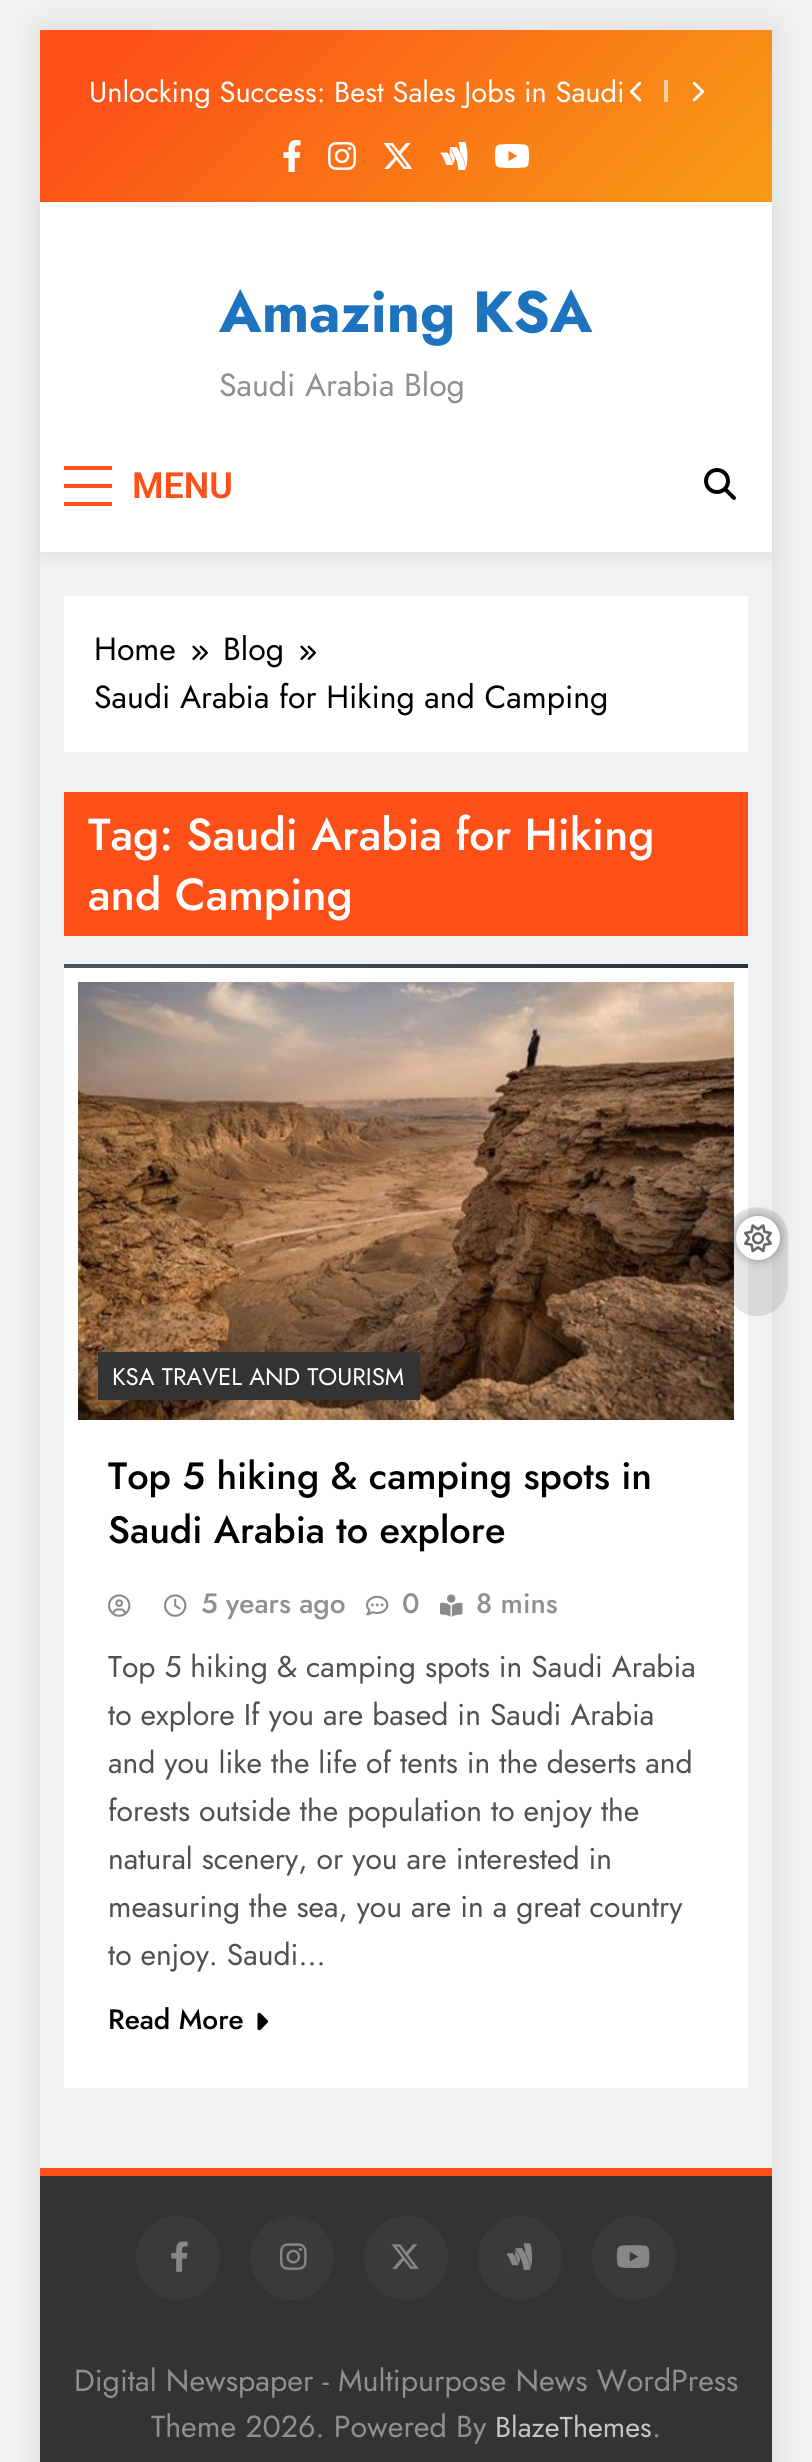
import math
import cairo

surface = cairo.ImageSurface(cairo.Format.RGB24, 812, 2462)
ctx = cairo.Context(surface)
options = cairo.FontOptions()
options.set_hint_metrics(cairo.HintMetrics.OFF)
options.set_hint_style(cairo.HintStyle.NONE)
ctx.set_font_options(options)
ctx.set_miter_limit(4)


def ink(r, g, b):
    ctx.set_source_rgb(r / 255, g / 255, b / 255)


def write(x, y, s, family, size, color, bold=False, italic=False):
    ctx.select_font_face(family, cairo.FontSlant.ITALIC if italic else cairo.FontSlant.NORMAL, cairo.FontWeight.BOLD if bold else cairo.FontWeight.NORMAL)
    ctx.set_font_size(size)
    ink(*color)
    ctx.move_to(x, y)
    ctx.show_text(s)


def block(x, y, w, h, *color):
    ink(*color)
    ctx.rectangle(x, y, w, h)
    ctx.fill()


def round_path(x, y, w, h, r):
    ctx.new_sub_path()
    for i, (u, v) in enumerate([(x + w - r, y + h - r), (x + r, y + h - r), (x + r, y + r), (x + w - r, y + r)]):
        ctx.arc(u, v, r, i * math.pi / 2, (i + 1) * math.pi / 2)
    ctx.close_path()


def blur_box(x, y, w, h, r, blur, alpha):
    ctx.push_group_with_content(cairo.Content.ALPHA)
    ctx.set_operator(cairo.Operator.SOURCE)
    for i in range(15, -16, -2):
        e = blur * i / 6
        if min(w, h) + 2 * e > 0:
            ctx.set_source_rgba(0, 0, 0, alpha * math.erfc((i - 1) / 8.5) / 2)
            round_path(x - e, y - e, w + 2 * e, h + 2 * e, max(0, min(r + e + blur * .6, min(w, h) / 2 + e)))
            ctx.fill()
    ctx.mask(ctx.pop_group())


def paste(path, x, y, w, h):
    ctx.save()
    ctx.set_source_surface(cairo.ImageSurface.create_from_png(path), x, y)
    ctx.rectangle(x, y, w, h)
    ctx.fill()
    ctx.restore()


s1 = dict(family="Jost", size=29, color=(255, 255, 255))
s2 = dict(family="Jost", size=58, color=(30, 115, 190), bold=True)
s3 = dict(family="Jost", size=32, color=(143, 143, 143))
s4 = dict(family="Roboto SemiBold", size=36, color=(253, 79, 24))
s5 = dict(family="Jost", size=32, color=(0, 0, 0))
s6 = dict(family="Jost Medium", size=44.75, color=(255, 255, 255))
s7 = dict(family="Jost", size=24, color=(255, 255, 255))
s8 = dict(family="Jost Medium", size=38, color=(0, 0, 0))
s9 = dict(family="Jost Medium", size=28, color=(143, 143, 143))
s10 = dict(family="Jost", size=30, color=(80, 80, 80))
s11 = dict(family="Jost Medium", size=28, color=(0, 0, 0))
s12 = dict(family="Jost", size=30.4, color=(143, 143, 143))
s13 = dict(family="Jost", size=28.75, color=(197, 197, 197))

ink(240, 241, 242)
ctx.paint()
ctx.save()
ctx.set_fill_rule(cairo.FillRule.EVEN_ODD)
ctx.new_path()
ctx.move_to(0, 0)
ctx.line_to(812, 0)
ctx.line_to(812, 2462)
ctx.line_to(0, 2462)
ctx.close_path()
ctx.move_to(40, 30)
ctx.line_to(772, 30)
ctx.line_to(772, 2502)
ctx.line_to(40, 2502)
ctx.close_path()
ctx.clip()
ink(0, 0, 0)
blur_box(40, 30, 732, 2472, 0, 15, 0.1)
ctx.restore()
gradient = cairo.LinearGradient(180, -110, 632, 342)
gradient.add_color_stop_rgba(0.1, 0.992, 0.31, 0.094, 1)
gradient.add_color_stop_rgba(1, 0.969, 0.616, 0.086, 1)
ctx.set_source(gradient)
ctx.rectangle(40, 30, 732, 172)
ctx.fill()
ctx.save()
ctx.rectangle(90, 76, 532, 32)
ctx.clip()
write(89, 102, "Unlocking Success: Best Sales Jobs in Saudi", **s1)
ctx.restore()
paste("pic1.png", 630, 81, 12, 21)
block(664, 80, 4, 22, 253, 207, 162)
paste("pic2.png", 692, 81, 12, 21)
paste("pic3.png", 283, 140, 18, 32)
paste("pic4.png", 328, 142, 28, 28)
paste("pic5.png", 383, 143, 30, 26)
paste("pic6.png", 440, 142, 28, 28)
paste("pic7.png", 494, 144, 36, 24)
ink(0, 0, 0)
blur_box(40, 208, 732, 350, 0, 4, 0.05)
block(40, 202, 732, 350, 255, 255, 255)
write(219, 332, "Amazing KSA", **s2)
write(219, 396, "Saudi Arabia Blog", **s3)
block(64, 466, 48, 4, 253, 79, 24)
block(64, 484, 48, 4, 253, 79, 24)
block(64, 502, 48, 4, 253, 79, 24)
write(132, 498, "MENU", **s4)
paste("pic8.png", 704, 468, 32, 32)
block(64, 968, 684, 1120, 255, 255, 255)
paste("pic11.png", 78, 982, 656, 438)
ctx.set_source_rgba(0, 0, 0, 0.1)
ctx.new_path()
ctx.move_to(788, 1237)
ctx.line_to(788, 1285)
ctx.curve_to(787, 1319, 742, 1328, 730, 1297)
ctx.curve_to(726, 1288, 727, 1272, 727, 1261)
ctx.line_to(727, 1237)
ctx.curve_to(729, 1196, 788, 1199, 788, 1237)
ctx.close_path()
ctx.fill()
ink(0, 0, 0)
blur_box(736, 1216, 44, 44, 22, 5, 0.35)
ink(255, 255, 255)
ctx.arc(758, 1238, 22, 0, 2 * math.pi)
ctx.fill()
paste("pic9.png", 744, 1224, 28, 29)
block(64, 596, 684, 156, 255, 255, 255)
write(94, 660, "Home", **s5)
paste("pic10.png", 192, 645, 16, 15)
write(223, 660, "Blog", **s5)
paste("pic10.png", 300, 645, 16, 15)
write(94, 708, "Saudi Arabia for Hiking and Camping", **s5)
block(64, 792, 684, 144, 253, 79, 24)
write(88, 850, "Tag: Saudi Arabia for Hiking", **s6)
write(88, 910, "and Camping", **s6)
gradient = cairo.LinearGradient(234, 794, 578, 1138)
gradient.add_color_stop_rgba(0.1, 0.282, 0.333, 0.388, 1)
gradient.add_color_stop_rgba(1, 0.161, 0.196, 0.235, 1)
ctx.set_source(gradient)
ctx.rectangle(64, 964, 684, 4)
ctx.fill()
block(98, 1352, 322, 48, 51, 51, 51)
write(112, 1385, "KSA TRAVEL AND TOURISM", **s7)
write(108, 1489, "Top 5 hiking & camping spots in", **s8)
write(108, 1543, "Saudi Arabia to explore", **s8)
paste("pic12.png", 108, 1594, 23, 23)
paste("pic13.png", 164, 1594, 23, 23)
write(201, 1613, "5 years ago", **s9)
paste("pic14.png", 366, 1595, 23, 21)
write(402, 1613, "0", **s9)
paste("pic15.png", 440, 1594, 23, 23)
write(476, 1613, "8 mins", **s9)
write(108, 1677, "Top 5 hiking & camping spots in Saudi Arabia", **s10)
write(108, 1725, "to explore If you are based in Saudi Arabia", **s10)
write(108, 1773, "and you like the life of tents in the deserts and", **s10)
write(108, 1821, "forests outside the population to enjoy the", **s10)
write(108, 1869, "natural scenery, or you are interested in", **s10)
write(108, 1917, "measuring the sea, you are in a great country", **s10)
write(108, 1965, "to enjoy. Saudi…", **s10)
write(108, 2029, "Read More", **s11)
paste("pic16.png", 257, 2012, 11, 19)
block(40, 2168, 732, 8, 253, 79, 24)
block(40, 2176, 732, 286, 51, 51, 51)
ink(58, 58, 58)
ctx.arc(178, 2258, 42, 0, 2 * math.pi)
ctx.fill()
paste("pic17.png", 171, 2241, 17, 31)
ctx.arc(292, 2258, 42, 0, 2 * math.pi)
ctx.fill()
paste("pic18.png", 280, 2243, 27, 27)
ctx.arc(406, 2258, 42, 0, 2 * math.pi)
ctx.fill()
paste("pic19.png", 391, 2244, 28, 25)
ctx.arc(520, 2258, 42, 0, 2 * math.pi)
ctx.fill()
paste("pic20.png", 506, 2243, 27, 27)
ctx.arc(634, 2258, 42, 0, 2 * math.pi)
ctx.fill()
paste("pic21.png", 616, 2245, 34, 23)
write(74, 2391, "Digital Newspaper - Multipurpose News WordPress", **s12)
write(151, 2437, "Theme 2026. Powered By", **s12)
write(495, 2437, "BlazeThemes", **s13)
write(652, 2437, ".", **s12)
surface.write_to_png("screenshot.png")
